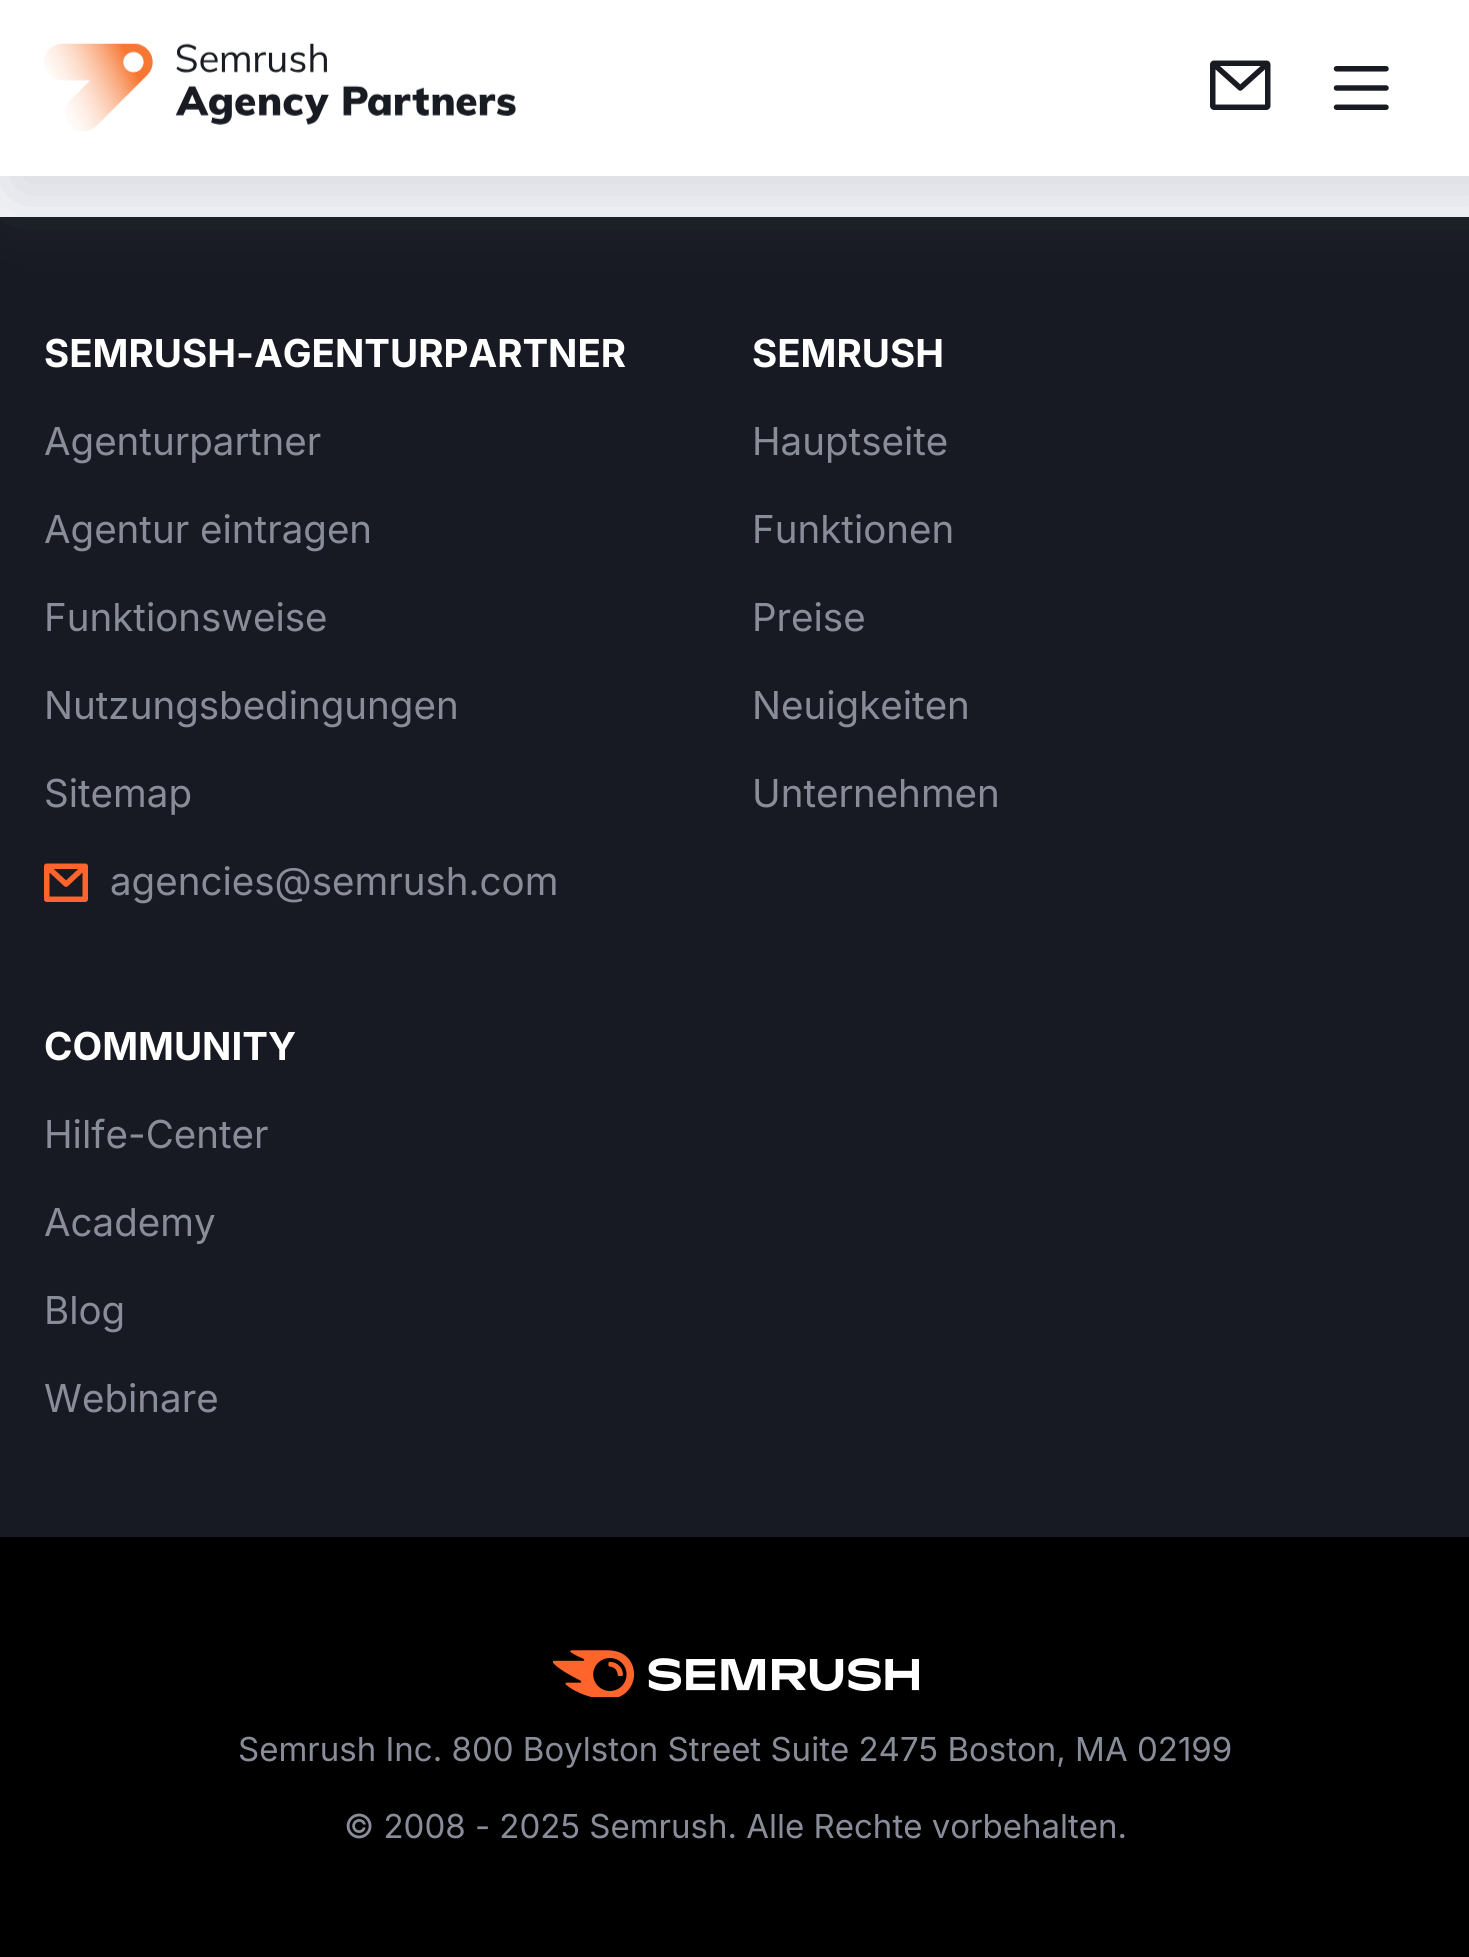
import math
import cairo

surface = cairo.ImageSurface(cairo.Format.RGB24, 1469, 1957)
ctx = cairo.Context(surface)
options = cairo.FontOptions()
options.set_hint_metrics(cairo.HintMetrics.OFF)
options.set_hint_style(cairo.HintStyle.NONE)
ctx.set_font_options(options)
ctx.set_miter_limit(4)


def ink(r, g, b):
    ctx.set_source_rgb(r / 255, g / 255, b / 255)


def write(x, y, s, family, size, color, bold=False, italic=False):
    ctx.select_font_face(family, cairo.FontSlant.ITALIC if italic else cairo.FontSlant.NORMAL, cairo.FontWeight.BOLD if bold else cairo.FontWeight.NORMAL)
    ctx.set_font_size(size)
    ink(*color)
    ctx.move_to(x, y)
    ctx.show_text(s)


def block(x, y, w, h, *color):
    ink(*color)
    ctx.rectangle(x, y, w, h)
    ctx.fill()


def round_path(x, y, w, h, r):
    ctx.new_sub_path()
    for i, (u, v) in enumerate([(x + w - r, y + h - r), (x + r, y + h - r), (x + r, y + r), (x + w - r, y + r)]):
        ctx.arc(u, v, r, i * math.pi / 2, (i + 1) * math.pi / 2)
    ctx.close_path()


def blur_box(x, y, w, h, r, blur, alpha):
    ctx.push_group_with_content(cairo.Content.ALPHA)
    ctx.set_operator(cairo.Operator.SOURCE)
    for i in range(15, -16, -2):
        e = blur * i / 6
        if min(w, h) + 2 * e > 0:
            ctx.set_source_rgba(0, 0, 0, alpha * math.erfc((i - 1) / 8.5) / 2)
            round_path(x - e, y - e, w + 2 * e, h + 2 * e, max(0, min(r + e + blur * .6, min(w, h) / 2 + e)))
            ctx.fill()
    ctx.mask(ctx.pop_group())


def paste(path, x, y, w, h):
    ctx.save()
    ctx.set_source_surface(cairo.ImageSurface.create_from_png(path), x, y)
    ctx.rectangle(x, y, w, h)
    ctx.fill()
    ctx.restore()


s1 = dict(family="Inter", size=38.5, color=(255, 255, 255), bold=True)
s2 = dict(family="Inter", size=38.5, color=(137, 141, 154))
s3 = dict(family="Inter", size=33, color=(137, 141, 154))

ink(244, 245, 249)
ctx.paint()
block(0, 217, 1469, 1320, 23, 26, 34)
ink(137, 141, 154)
blur_box(14, 14, 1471, 176, 0, 34.5, 0.3)
block(0, 0, 1469, 176, 255, 255, 255)
paste("pic1.png", 44, 43, 472, 89)
paste("pic2.png", 1210, 60, 61, 50)
paste("pic3.png", 1333, 66, 56, 44)
write(44, 367, "SEMRUSH-AGENTURPARTNER", **s1)
write(44, 455, "Agenturpartner", **s2)
write(44, 543, "Agentur eintragen", **s2)
write(44, 631, "Funktionsweise", **s2)
write(44, 719, "Nutzungsbedingungen", **s2)
write(44, 807, "Sitemap", **s2)
paste("pic4.png", 44, 863, 44, 39)
write(110, 895, "agencies@semrush.com", **s2)
write(752, 367, "SEMRUSH", **s1)
write(752, 455, "Hauptseite", **s2)
write(752, 543, "Funktionen", **s2)
write(752, 631, "Preise", **s2)
write(752, 719, "Neuigkeiten", **s2)
write(752, 807, "Unternehmen", **s2)
write(44, 1060, "COMMUNITY", **s1)
write(44, 1148, "Hilfe-Center", **s2)
write(44, 1236, "Academy", **s2)
write(44, 1324, "Blog", **s2)
write(44, 1412, "Webinare", **s2)
block(0, 1537, 1469, 420, 0, 0, 0)
paste("pic5.png", 553, 1650, 366, 47)
write(238, 1761, "Semrush Inc. 800 Boylston Street Suite 2475 Boston, MA 02199", **s3)
write(344, 1838, "© 2008 - 2025 Semrush. Alle Rechte vorbehalten.", **s3)
surface.write_to_png("screenshot.png")
